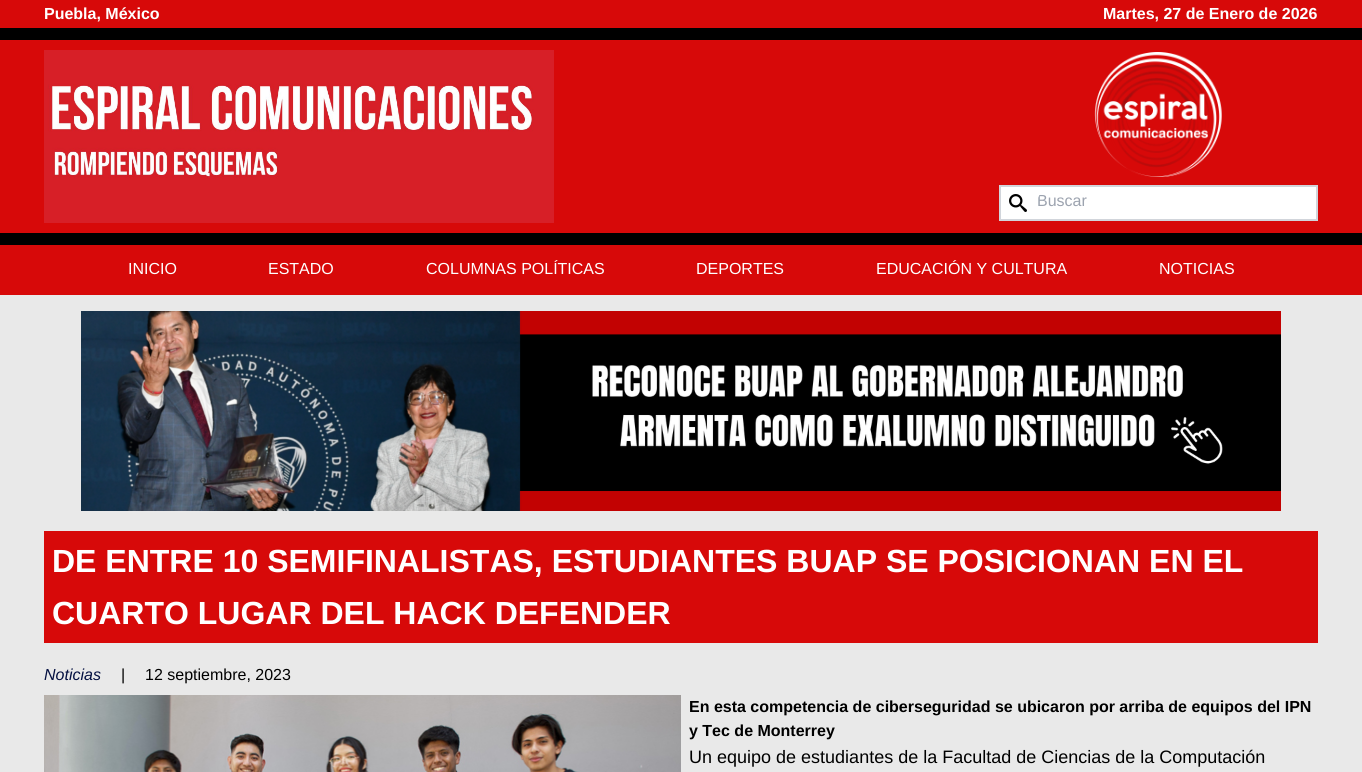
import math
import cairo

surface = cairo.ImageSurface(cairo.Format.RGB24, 1362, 772)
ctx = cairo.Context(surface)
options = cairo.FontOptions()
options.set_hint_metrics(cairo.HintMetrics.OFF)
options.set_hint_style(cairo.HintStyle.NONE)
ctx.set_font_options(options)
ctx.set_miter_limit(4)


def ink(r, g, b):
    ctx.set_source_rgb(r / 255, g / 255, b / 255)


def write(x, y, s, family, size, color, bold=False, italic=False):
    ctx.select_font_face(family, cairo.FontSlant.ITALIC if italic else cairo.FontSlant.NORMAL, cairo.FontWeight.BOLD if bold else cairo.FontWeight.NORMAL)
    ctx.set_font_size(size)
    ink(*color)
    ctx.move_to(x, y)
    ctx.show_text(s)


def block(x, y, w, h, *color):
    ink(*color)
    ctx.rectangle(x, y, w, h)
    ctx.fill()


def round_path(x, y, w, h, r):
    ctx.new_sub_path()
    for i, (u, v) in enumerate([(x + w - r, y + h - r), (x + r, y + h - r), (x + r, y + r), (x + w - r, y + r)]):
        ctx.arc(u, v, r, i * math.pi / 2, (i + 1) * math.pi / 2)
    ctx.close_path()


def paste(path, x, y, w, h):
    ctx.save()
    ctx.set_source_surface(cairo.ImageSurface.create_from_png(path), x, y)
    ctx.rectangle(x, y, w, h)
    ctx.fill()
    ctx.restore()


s1 = dict(family="Liberation Sans", size=16, color=(255, 255, 255), bold=True)
s2 = dict(family="Liberation Sans", size=16, color=(156, 163, 175))
s3 = dict(family="Liberation Sans", size=16, color=(255, 255, 255))
s4 = dict(family="Liberation Sans", size=32, color=(255, 255, 255), bold=True)
s5 = dict(family="Liberation Sans", size=16, color=(4, 16, 65), italic=True)
s6 = dict(family="Liberation Sans", size=16, color=(0, 0, 0))
s7 = dict(family="Liberation Sans", size=16, color=(0, 0, 0), bold=True)
s8 = dict(family="Liberation Sans", size=18, color=(0, 0, 0))

ink(233, 233, 233)
ctx.paint()
block(0, 0, 1362, 28, 215, 9, 9)
write(44, 19, "Puebla, México", **s1)
write(1103, 19, "Martes, 27 de Enero de 2026", **s1)
block(0, 28, 1362, 12, 0, 0, 0)
block(0, 40, 1362, 193, 215, 9, 9)
paste("pic1.png", 44, 50, 510, 173)
paste("pic2.png", 1094, 52, 128, 125)
ink(255, 255, 255)
ctx.rectangle(1000, 186, 317, 34)
ctx.fill_preserve()
ink(209, 213, 219)
ctx.stroke()
paste("pic3.png", 1009, 194, 18, 18)
ctx.save()
round_path(1037, 189, 277, 28, 14)
ctx.clip()
write(1037, 206, "Buscar", **s2)
ctx.restore()
block(0, 233, 1362, 12, 0, 0, 0)
block(0, 245, 1362, 50, 215, 9, 9)
write(128, 274, "INICIO", **s3)
write(268, 274, "ESTADO", **s3)
write(426, 274, "COLUMNAS POLÍTICAS", **s3)
write(696, 274, "DEPORTES", **s3)
write(876, 274, "EDUCACIÓN Y CULTURA", **s3)
write(1159, 274, "NOTICIAS", **s3)
paste("pic4.png", 81, 311, 1200, 200)
block(44, 531, 1274, 112, 215, 9, 9)
write(52, 572, "DE ENTRE 10 SEMIFINALISTAS, ESTUDIANTES BUAP SE POSICIONAN EN EL", **s4)
write(52, 624, "CUARTO LUGAR DEL HACK DEFENDER", **s4)
write(44, 680, "Noticias", **s5)
write(121, 680, "|", **s6)
write(145, 680, "12 septiembre, 2023", **s6)
paste("pic5.png", 44, 695, 637, 77)
write(689, 712, "En esta competencia de ciberseguridad se ubicaron por arriba de equipos del IPN", **s7)
write(689, 736, "y Tec de Monterrey", **s7)
write(689, 763, "Un equipo de estudiantes de la Facultad de Ciencias de la Computación", **s8)
surface.write_to_png("screenshot.png")
